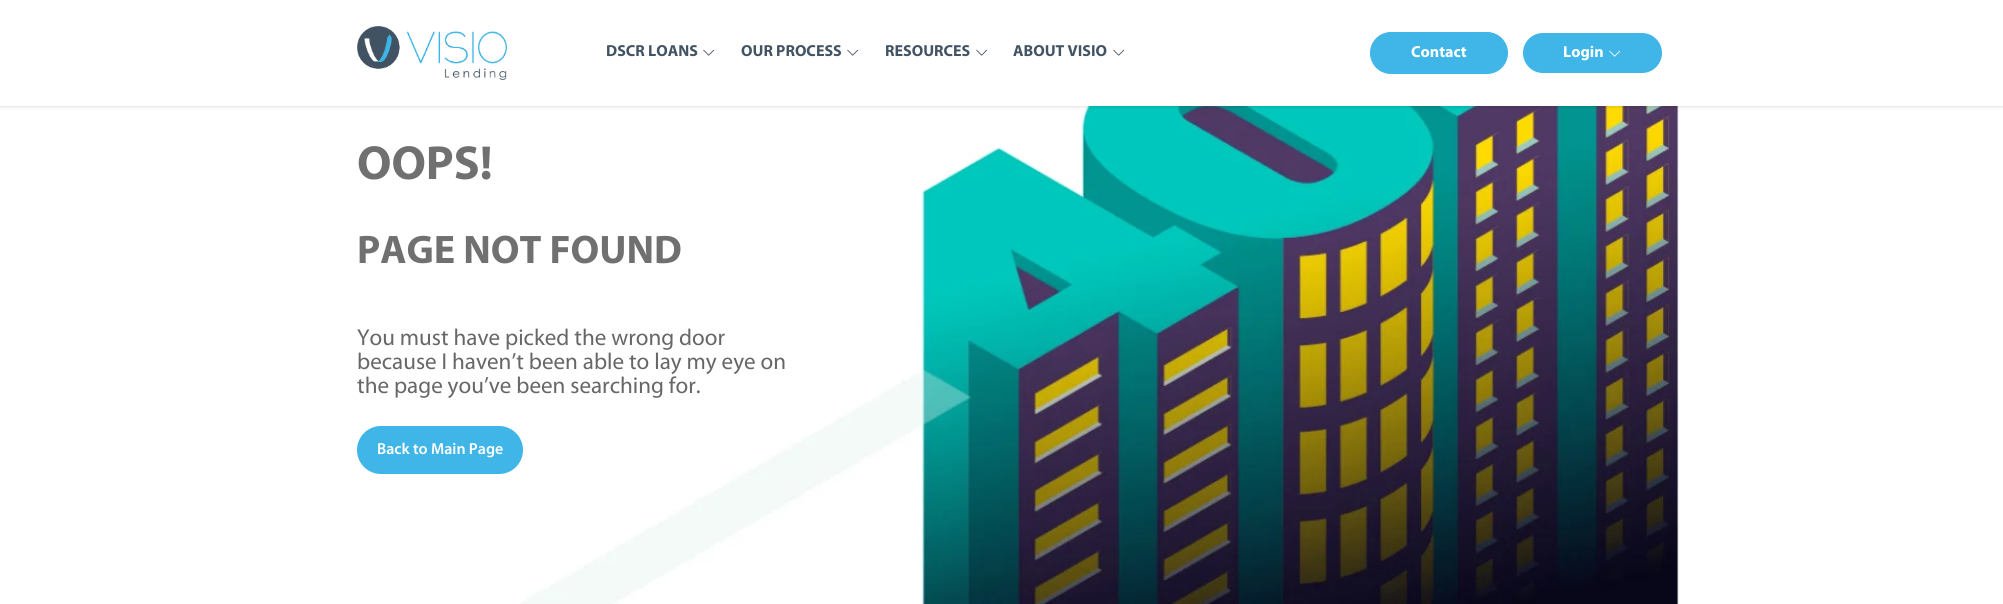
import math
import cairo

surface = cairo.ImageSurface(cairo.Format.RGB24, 2003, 604)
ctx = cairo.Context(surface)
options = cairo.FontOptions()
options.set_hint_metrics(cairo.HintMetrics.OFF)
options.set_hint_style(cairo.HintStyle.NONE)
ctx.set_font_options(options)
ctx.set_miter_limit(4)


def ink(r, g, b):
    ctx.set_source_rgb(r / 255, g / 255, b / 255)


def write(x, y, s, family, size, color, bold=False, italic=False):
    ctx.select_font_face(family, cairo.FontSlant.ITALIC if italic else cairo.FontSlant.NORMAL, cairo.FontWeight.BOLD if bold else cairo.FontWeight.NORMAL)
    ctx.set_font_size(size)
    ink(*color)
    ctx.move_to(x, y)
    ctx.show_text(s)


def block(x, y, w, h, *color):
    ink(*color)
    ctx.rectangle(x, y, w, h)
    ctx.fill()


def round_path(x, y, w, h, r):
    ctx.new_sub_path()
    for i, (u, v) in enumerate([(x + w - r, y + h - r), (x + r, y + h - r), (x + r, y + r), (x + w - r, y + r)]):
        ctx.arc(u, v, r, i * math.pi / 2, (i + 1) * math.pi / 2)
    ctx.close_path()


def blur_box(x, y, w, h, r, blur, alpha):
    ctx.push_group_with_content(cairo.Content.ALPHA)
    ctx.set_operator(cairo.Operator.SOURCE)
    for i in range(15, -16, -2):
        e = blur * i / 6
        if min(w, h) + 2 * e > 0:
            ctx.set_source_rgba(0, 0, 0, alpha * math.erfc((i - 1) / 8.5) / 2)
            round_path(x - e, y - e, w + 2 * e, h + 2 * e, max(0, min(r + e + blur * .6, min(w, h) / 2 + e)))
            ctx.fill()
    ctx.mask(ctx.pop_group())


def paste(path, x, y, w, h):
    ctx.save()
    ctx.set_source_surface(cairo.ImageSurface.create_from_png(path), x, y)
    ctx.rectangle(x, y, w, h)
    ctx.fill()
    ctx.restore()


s1 = dict(family="Myriad", size=16, color=(66, 83, 99), bold=True)
s2 = dict(family="Myriad", size=16, color=(255, 255, 255), bold=True)
s3 = dict(family="Myriad", size=48, color=(112, 112, 112), bold=True)
s4 = dict(family="Myriad", size=40, color=(112, 112, 112), bold=True)
s5 = dict(family="Myriad", size=23.1, color=(103, 103, 103))
s6 = dict(family="Myriad SemiBold", size=16, color=(255, 255, 255))

ink(255, 255, 255)
ctx.paint()
paste("pic4.png", 520, 106, 1159, 498)
ink(0, 0, 0)
blur_box(0, 0, 2003, 106, 0, 2, 0.2)
block(0, 0, 2003, 106, 255, 255, 255)
paste("pic1.png", 357, 26, 150, 54)
write(606, 56, "DSCR LOANS", **s1)
paste("pic2.png", 703, 49, 12, 7)
write(741, 56, "OUR PROCESS", **s1)
paste("pic2.png", 847, 49, 12, 7)
write(885, 56, "RESOURCES", **s1)
paste("pic2.png", 976, 49, 12, 7)
write(1013, 56, "ABOUT VISIO", **s1)
paste("pic2.png", 1113, 49, 12, 7)
ink(63, 181, 232)
round_path(1370.5, 32.5, 137, 41, 20.5)
ctx.fill_preserve()
ctx.set_line_width(1)
ctx.stroke()
write(1411, 57, "Contact", **s2)
ink(63, 181, 232)
round_path(1523, 33, 139, 40, 20)
ctx.fill()
write(1563, 57, "Login", **s2)
paste("pic3.png", 1609, 50, 12, 7)
write(357, 179, "OOPS!", **s3)
write(357, 263, "PAGE NOT FOUND", **s4)
write(357, 345, "You must have picked the wrong door", **s5)
write(357, 369, "because I haven’t been able to lay my eye on", **s5)
write(357, 393, "the page you’ve been searching for.", **s5)
ink(63, 181, 232)
round_path(357, 426, 166, 48, 24)
ctx.fill()
write(377, 454, "Back to Main Page", **s6)
surface.write_to_png("screenshot.png")
